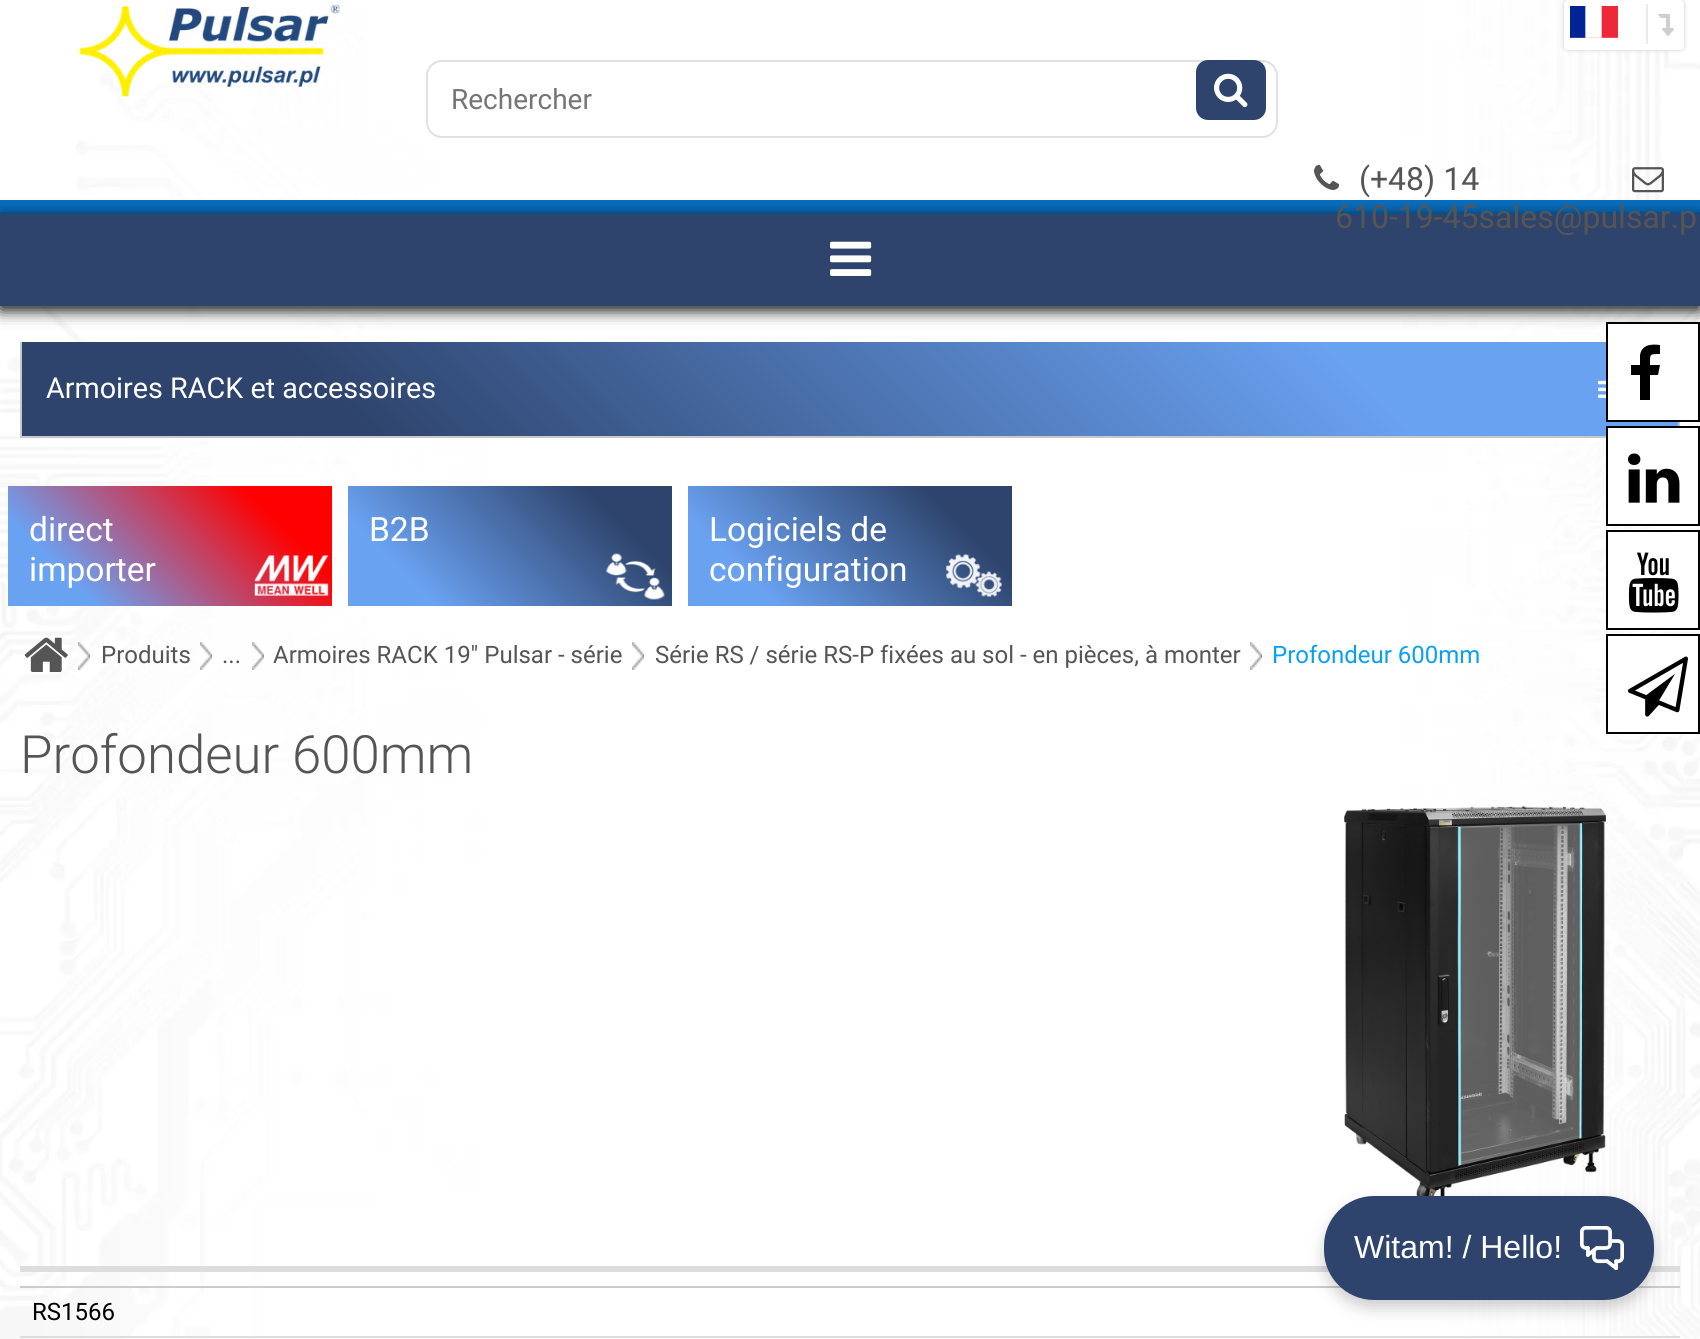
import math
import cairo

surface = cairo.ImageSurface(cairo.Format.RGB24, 1700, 1339)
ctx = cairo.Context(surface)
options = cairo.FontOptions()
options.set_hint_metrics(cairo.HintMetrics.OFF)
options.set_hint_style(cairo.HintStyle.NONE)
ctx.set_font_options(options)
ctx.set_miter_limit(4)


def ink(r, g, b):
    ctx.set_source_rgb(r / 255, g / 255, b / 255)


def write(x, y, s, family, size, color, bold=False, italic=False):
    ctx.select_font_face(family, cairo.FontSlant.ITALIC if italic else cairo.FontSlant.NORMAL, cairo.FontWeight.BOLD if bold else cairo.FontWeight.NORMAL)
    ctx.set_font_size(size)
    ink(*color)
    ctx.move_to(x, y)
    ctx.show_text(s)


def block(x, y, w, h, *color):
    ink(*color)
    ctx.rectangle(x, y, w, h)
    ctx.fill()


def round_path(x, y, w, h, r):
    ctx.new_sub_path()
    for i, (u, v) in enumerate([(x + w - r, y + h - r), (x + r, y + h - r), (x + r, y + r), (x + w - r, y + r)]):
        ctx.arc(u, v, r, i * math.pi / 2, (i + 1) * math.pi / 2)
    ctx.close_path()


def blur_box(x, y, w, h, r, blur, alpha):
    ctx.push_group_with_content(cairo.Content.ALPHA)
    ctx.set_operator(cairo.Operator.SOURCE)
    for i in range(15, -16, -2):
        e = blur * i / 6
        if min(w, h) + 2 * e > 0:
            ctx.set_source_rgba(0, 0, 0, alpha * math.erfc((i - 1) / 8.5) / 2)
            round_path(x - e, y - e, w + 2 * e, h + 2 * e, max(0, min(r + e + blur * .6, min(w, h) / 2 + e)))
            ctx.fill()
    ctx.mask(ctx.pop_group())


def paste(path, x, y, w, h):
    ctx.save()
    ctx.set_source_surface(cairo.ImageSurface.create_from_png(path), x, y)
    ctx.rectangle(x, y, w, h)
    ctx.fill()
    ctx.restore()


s1 = dict(family="Roboto", size=28, color=(117, 117, 117))
s2 = dict(family="Roboto", size=32, color=(85, 85, 85))
s3 = dict(family="Roboto", size=28.75, color=(255, 255, 255))
s4 = dict(family="Roboto", size=33.5, color=(255, 255, 255))
s5 = dict(family="Roboto", size=24, color=(85, 85, 85))
s6 = dict(family="Roboto", size=24, color=(9, 160, 241))
s7 = dict(family="Roboto Light", size=52.75, color=(85, 85, 85))
s8 = dict(family="Roboto", size=24, color=(0, 0, 0))
s9 = dict(family="Liberation Sans", size=32, color=(255, 255, 255))

ink(255, 255, 255)
ctx.paint()
paste("pic1.png", 0, 0, 1700, 1339)
block(0, 200, 1700, 14, 8, 110, 191)
paste("pic2.png", 79, 4, 261, 93)
round_path(427, 61, 850, 76, 15)
ink(225, 225, 225)
ctx.stroke()
write(451, 109, "Rechercher", **s1)
ink(46, 68, 109)
round_path(1196, 60, 70, 60, 12)
ctx.fill()
paste("pic3.png", 1214, 73, 34, 35)
ink(204, 204, 204)
blur_box(1564, 0, 120, 50, 4, 2, 1)
ink(255, 255, 255)
round_path(1564, 0, 120, 50, 4)
ctx.fill()
paste("pic4.png", 1570, 6, 48, 32)
block(1646, 4, 2, 40, 234, 234, 234)
paste("pic5.png", 1658, 14, 16, 22)
paste("pic6.png", 1314, 164, 26, 26)
ink(0, 0, 0)
blur_box(0, 218, 1700, 92, 0, 8, 1)
write(1359, 190, "(+48) 14", **s2)
block(0, 214, 1700, 92, 46, 68, 109)
write(1335, 228, "610-19-45sales@pulsar.p", **s2)
paste("pic7.png", 1632, 167, 32, 26)
paste("pic8.png", 830, 241, 42, 35)
block(1678, 422, 2, 4, 200, 200, 200)
block(20, 436, 1586, 2, 200, 200, 200)
block(20, 342, 2, 96, 200, 200, 200)
gradient = cairo.LinearGradient(413, 827, 1288, -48)
gradient.add_color_stop_rgba(0.2, 0.18, 0.267, 0.427, 1)
gradient.add_color_stop_rgba(0.8, 0.416, 0.635, 0.949, 1)
ctx.set_source(gradient)
ctx.rectangle(22, 342, 1656, 94)
ctx.fill()
write(46, 398, "Armoires RACK et accessoires", **s3)
paste("pic9.png", 1598, 380, 8, 18)
gradient = cairo.LinearGradient(59, 657, 281, 435)
gradient.add_color_stop_rgba(0.2, 0.416, 0.635, 0.949, 1)
gradient.add_color_stop_rgba(0.8, 1, 0, 0, 1)
ctx.set_source(gradient)
ctx.rectangle(8, 486, 324, 120)
ctx.fill()
write(29, 541, "direct", **s4)
write(29, 581, "importer", **s4)
paste("pic10.png", 254, 555, 75, 41)
gradient = cairo.LinearGradient(399, 657, 621, 435)
gradient.add_color_stop_rgba(0.2, 0.416, 0.635, 0.949, 1)
gradient.add_color_stop_rgba(0.8, 0.18, 0.267, 0.427, 1)
ctx.set_source(gradient)
ctx.rectangle(348, 486, 324, 120)
ctx.fill()
write(369, 541, "B2B", **s4)
paste("pic11.png", 606, 553, 59, 47)
gradient = cairo.LinearGradient(739, 657, 961, 435)
gradient.add_color_stop_rgba(0.2, 0.416, 0.635, 0.949, 1)
gradient.add_color_stop_rgba(0.8, 0.18, 0.267, 0.427, 1)
ctx.set_source(gradient)
ctx.rectangle(688, 486, 324, 120)
ctx.fill()
write(709, 541, "Logiciels de", **s4)
write(709, 581, "configuration", **s4)
paste("pic12.png", 946, 554, 56, 43)
paste("pic13.png", 24, 637, 44, 35)
paste("pic14.png", 78, 642, 12, 28)
write(101, 663, "Produits", **s5)
paste("pic14.png", 200, 642, 12, 28)
write(222, 663, "...", **s5)
paste("pic14.png", 252, 642, 12, 28)
write(273, 663, "Armoires RACK 19\" Pulsar - série", **s5)
paste("pic14.png", 632, 642, 12, 28)
write(655, 663, "Série RS / série RS-P fixées au sol - en pièces, à monter", **s5)
paste("pic14.png", 1250, 642, 12, 28)
write(1272, 663, "Profondeur 600mm", **s6)
write(20, 773, "Profondeur 600mm", **s7)
paste("pic15.png", 1344, 806, 262, 390)
block(20, 1266, 1660, 6, 221, 221, 221)
block(20, 1286, 1660, 2, 204, 204, 204)
block(20, 1336, 1660, 2, 221, 221, 221)
write(32, 1320, "RS1566", **s8)
ink(255, 255, 255)
ctx.rectangle(1607, 323, 92, 98)
ctx.fill_preserve()
ink(0, 0, 0)
ctx.stroke()
ctx.new_path()
ctx.move_to(1660, 345)
ctx.line_to(1660, 354)
ctx.curve_to(1649, 354, 1650, 354, 1650, 365)
ctx.line_to(1660, 365)
ctx.line_to(1658, 375)
ctx.line_to(1650, 375)
ctx.line_to(1650, 400)
ctx.line_to(1640, 400)
ctx.line_to(1640, 375)
ctx.line_to(1631, 375)
ctx.line_to(1631, 365)
ctx.line_to(1640, 365)
ctx.line_to(1640, 355)
ctx.curve_to(1642, 344, 1652, 344, 1660, 345)
ctx.close_path()
ctx.fill()
ink(255, 255, 255)
ctx.rectangle(1607, 427, 92, 98)
ctx.fill_preserve()
ink(0, 0, 0)
ctx.stroke()
paste("pic16.png", 1628, 453, 52, 50)
ink(255, 255, 255)
ctx.rectangle(1607, 531, 92, 98)
ctx.fill_preserve()
ink(0, 0, 0)
ctx.stroke()
paste("pic17.png", 1628, 552, 51, 61)
ink(255, 255, 255)
ctx.rectangle(1607, 635, 92, 98)
ctx.fill_preserve()
ink(0, 0, 0)
ctx.stroke()
paste("pic18.png", 1628, 656, 60, 61)
ink(0, 0, 0)
blur_box(1324, 1204, 330, 104, 50, 8, 0.2)
ink(46, 68, 109)
round_path(1324, 1196, 330, 104, 50)
ctx.fill()
write(1354, 1258, "Witam! / Hello!", **s9)
paste("pic19.png", 1580, 1226, 44, 44)
surface.write_to_png("screenshot.png")
